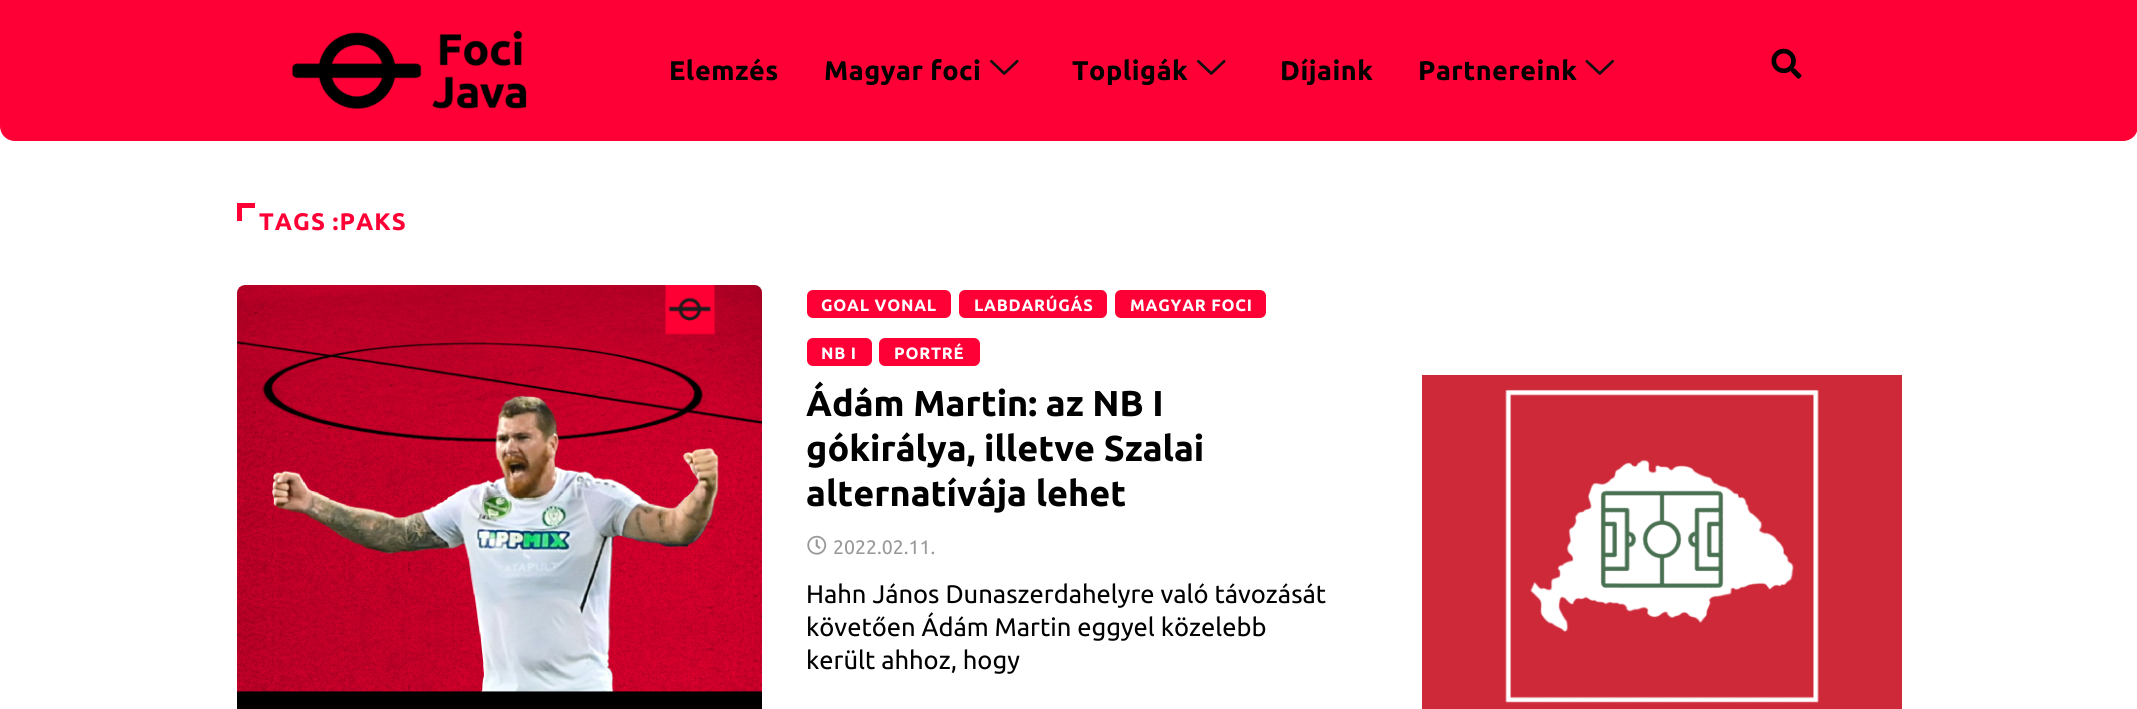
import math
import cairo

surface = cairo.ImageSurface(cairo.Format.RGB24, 2137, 709)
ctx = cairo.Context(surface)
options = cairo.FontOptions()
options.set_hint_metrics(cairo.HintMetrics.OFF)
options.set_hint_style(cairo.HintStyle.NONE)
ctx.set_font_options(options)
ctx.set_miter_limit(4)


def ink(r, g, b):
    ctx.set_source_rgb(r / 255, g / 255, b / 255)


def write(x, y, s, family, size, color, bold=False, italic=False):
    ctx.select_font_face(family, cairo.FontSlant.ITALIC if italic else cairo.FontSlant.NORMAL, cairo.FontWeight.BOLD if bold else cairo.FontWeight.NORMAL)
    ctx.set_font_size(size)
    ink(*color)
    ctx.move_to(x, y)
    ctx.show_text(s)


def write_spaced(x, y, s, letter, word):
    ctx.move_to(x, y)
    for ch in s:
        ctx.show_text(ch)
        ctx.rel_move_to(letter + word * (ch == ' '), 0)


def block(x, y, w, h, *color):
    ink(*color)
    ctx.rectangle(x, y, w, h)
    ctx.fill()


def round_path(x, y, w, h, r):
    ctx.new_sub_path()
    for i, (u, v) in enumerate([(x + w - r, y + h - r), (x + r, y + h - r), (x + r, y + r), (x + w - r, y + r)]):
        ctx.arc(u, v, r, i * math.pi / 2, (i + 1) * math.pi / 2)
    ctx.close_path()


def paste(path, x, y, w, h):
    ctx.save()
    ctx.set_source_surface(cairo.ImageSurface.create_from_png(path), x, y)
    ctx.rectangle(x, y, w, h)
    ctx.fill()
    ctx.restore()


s1 = dict(family="Ubuntu", size=36, color=(0, 0, 0), bold=True)
s2 = dict(family="Ubuntu", size=19.5, color=(153, 153, 153))
s3 = dict(family="Ubuntu", size=25.5, color=(0, 0, 0))

ink(255, 255, 255)
ctx.paint()
ink(255, 0, 54)
ctx.new_path()
ctx.move_to(0, 0)
ctx.line_to(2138, 0)
ctx.line_to(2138, 126)
ctx.curve_to(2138, 134.5, 2131.5, 141, 2123, 141)
ctx.line_to(15, 141)
ctx.curve_to(6.5, 141, 0, 134.5, 0, 126)
ctx.close_path()
ctx.fill()
paste("pic1.png", 292, 30, 235, 79)
ctx.select_font_face("Ubuntu", cairo.FontSlant.NORMAL, cairo.FontWeight.BOLD)
ctx.set_font_size(27)
ink(0, 0, 0)
write_spaced(669, 80, "Elemzés", 0.5, 0)
write_spaced(824, 80, "Magyar foci", 0.5, 0)
paste("pic2.png", 990, 59, 29, 16)
write_spaced(1072, 80, "Topligák", 0.5, 0)
paste("pic2.png", 1197, 59, 29, 16)
write_spaced(1280, 80, "Díjaink", 0.5, 0)
write_spaced(1418, 80, "Partnereink", 0.5, 0)
paste("pic3.png", 1585, 59, 29, 16)
paste("pic4.png", 1771, 48, 31, 31)
block(237, 203, 5, 18, 255, 0, 54)
block(237, 203, 18, 5, 255, 0, 54)
ctx.set_font_size(24)
write_spaced(259, 230, "TAGS :PAKS", 1, 0)
paste("pic5.png", 237, 285, 525, 424)
round_path(807, 290, 144, 28, 6)
ctx.fill()
ctx.set_font_size(16.5)
ink(255, 255, 255)
write_spaced(821, 311, "GOAL VONAL", 0.75, 0)
ink(255, 0, 54)
round_path(959, 290, 148, 28, 6)
ctx.fill()
ink(255, 255, 255)
write_spaced(974, 311, "LABDARÚGÁS", 0.75, 0)
ink(255, 0, 54)
round_path(1115, 290, 151, 28, 6)
ctx.fill()
ink(255, 255, 255)
write_spaced(1130, 311, "MAGYAR FOCI", 0.75, 0)
ink(255, 0, 54)
round_path(807, 338, 65, 28, 6)
ctx.fill()
ink(255, 255, 255)
write_spaced(821, 359, "NB I", 0.75, 0)
ink(255, 0, 54)
round_path(879, 338, 101, 28, 6)
ctx.fill()
ink(255, 255, 255)
write_spaced(894, 359, "PORTRÉ", 0.75, 0)
write(806, 416, "Ádám Martin: az NB I", **s1)
write(806, 461, "gókirálya, illetve Szalai", **s1)
write(806, 506, "alternatívája lehet", **s1)
paste("pic6.png", 807, 535, 20, 20)
write(833, 554, "2022.02.11.", **s2)
write(806, 603, "Hahn János Dunaszerdahelyre való távozását", **s3)
write(806, 636, "követően Ádám Martin eggyel közelebb", **s3)
write(806, 669, "került ahhoz, hogy", **s3)
paste("pic7.png", 1422, 375, 480, 334)
surface.write_to_png("screenshot.png")
